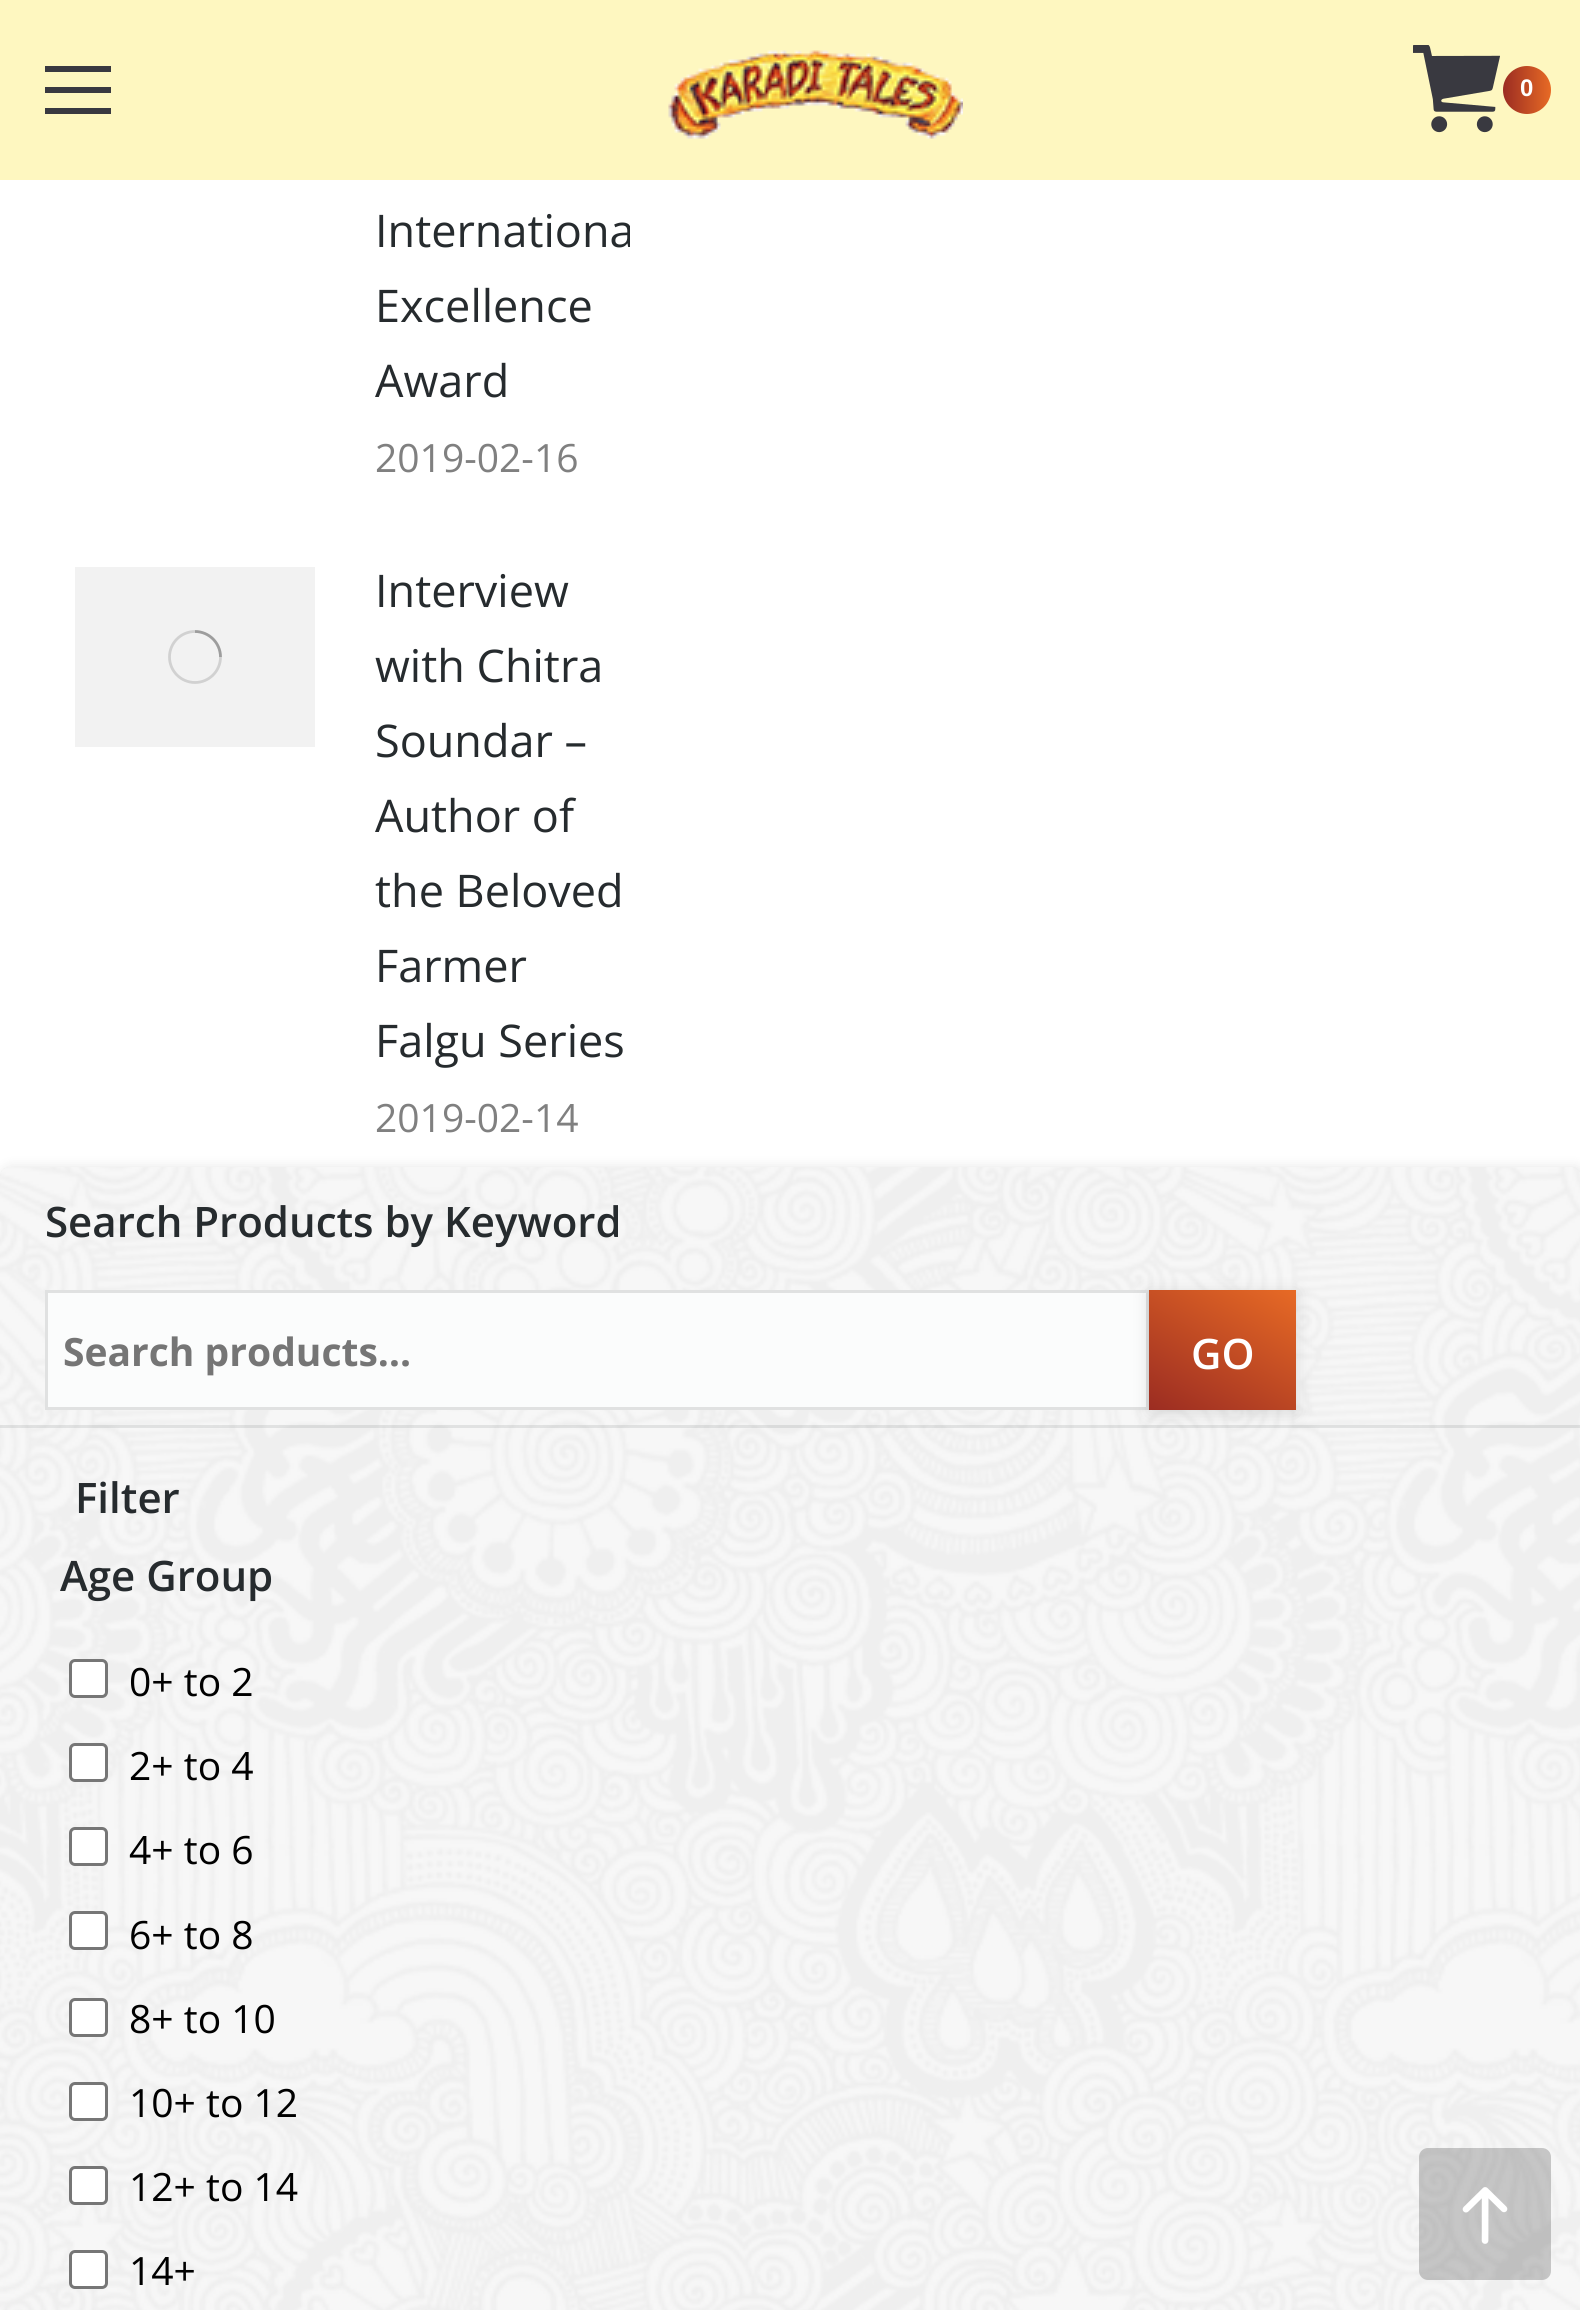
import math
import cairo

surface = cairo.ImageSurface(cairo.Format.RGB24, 1580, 2310)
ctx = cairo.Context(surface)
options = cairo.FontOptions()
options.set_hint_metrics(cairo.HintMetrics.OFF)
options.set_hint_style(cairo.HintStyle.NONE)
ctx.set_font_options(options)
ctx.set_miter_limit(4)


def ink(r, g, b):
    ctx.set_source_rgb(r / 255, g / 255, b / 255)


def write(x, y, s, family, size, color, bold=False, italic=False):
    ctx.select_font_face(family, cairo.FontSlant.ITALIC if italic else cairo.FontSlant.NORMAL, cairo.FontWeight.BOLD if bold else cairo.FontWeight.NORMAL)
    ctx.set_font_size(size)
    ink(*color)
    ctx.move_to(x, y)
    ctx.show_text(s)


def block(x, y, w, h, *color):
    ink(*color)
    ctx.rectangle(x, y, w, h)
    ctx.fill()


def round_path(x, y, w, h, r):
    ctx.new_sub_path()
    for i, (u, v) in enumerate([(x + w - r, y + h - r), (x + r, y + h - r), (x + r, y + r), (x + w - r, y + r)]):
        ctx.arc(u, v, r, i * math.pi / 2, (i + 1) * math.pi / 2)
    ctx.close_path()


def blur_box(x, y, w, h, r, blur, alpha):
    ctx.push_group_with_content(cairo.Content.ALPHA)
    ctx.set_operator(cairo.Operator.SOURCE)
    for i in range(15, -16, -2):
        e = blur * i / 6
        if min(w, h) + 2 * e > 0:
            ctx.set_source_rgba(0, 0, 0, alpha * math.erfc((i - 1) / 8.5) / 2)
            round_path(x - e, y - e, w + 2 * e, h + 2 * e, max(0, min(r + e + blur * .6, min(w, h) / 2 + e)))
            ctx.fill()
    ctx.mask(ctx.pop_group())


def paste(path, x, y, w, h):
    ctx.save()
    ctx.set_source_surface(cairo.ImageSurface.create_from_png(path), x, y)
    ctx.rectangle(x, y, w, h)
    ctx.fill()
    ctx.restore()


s1 = dict(family="Liberation Sans", size=24, color=(255, 255, 255), bold=True)
s2 = dict(family="Open Sans", size=45, color=(38, 43, 46))
s3 = dict(family="Open Sans", size=39, color=(128, 128, 128))
s4 = dict(family="Open Sans SemiBold", size=42, color=(38, 43, 46))
s5 = dict(family="Open Sans", size=39, color=(117, 117, 117), bold=True)
s6 = dict(family="Open Sans SemiBold", size=42, color=(255, 255, 255))
s7 = dict(family="Open Sans", size=39, color=(0, 0, 0))

ink(255, 255, 255)
ctx.paint()
block(0, 0, 1580, 180, 254, 247, 192)
block(45, 87, 66, 6, 57, 57, 64)
block(45, 66, 66, 6, 57, 57, 64)
block(45, 108, 66, 6, 57, 57, 64)
paste("pic1.png", 668, 50, 295, 89)
paste("pic2.png", 1413, 45, 87, 88)
gradient = cairo.LinearGradient(1503, 90, 1551, 90)
gradient.add_color_stop_rgba(0, 0.608, 0.173, 0.133, 1)
gradient.add_color_stop_rgba(1, 0.906, 0.416, 0.145, 1)
ctx.set_source(gradient)
ctx.arc(1527, 90, 24, 0, 2 * math.pi)
ctx.fill()
write(1520, 96, "0", **s1)
ctx.save()
ctx.rectangle(75, 0, 555, 492)
ctx.clip()
write(375, 247, "Internationa", **s2)
ctx.restore()
write(375, 322, "Excellence", **s2)
write(375, 397, "Award", **s2)
write(375, 472, "2019-02-16", **s3)
block(75, 567, 240, 180, 242, 242, 242)
ctx.new_path()
ctx.arc(195, 657, 25.5, 0, 2 * math.pi)
ink(209, 209, 209)
ctx.set_line_width(2.8)
ctx.stroke()
ctx.new_path()
ctx.move_to(220.5, 657)
ctx.curve_to(220.5, 643, 209, 631.5, 195, 631.5)
ctx.set_source_rgba(0, 0, 0, 0.25)
ctx.stroke()
write(375, 607, "Interview", **s2)
write(375, 682, "with Chitra", **s2)
write(375, 757, "Soundar –", **s2)
write(375, 832, "Author of", **s2)
write(375, 907, "the Beloved", **s2)
write(375, 982, "Farmer", **s2)
write(375, 1057, "Falgu Series", **s2)
write(375, 1132, "2019-02-14", **s3)
ink(0, 0, 0)
blur_box(0, 1167, 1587, 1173, 12, 6, 0.1)
ctx.set_source_rgba(0.867, 0.878, 0.894, 0.29)
round_path(0, 1167, 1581, 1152, 9)
ctx.fill()
paste("pic3.png", 0, 1167, 1580, 1143)
write(45, 1237, "Search Products by Keyword", **s4)
ink(251, 252, 252)
ctx.rectangle(46.5, 1291.5, 1101, 117)
ctx.fill_preserve()
ink(224, 225, 225)
ctx.set_line_width(3)
ctx.stroke()
write(63, 1366, "Search products…", **s5)
ctx.set_source_rgba(0.404, 0.42, 0.427, 0.15)
ctx.rectangle(0, 1425, 1580, 3)
ctx.fill()
ink(0, 0, 0)
blur_box(1149, 1293, 147, 120, 0, 9, 0.12)
gradient = cairo.LinearGradient(1178, 1427, 1267, 1273)
gradient.add_color_stop_rgba(0, 0.608, 0.173, 0.133, 1)
gradient.add_color_stop_rgba(1, 0.906, 0.416, 0.145, 1)
ctx.set_source(gradient)
ctx.rectangle(1149, 1290, 147, 120)
ctx.fill()
write(1191, 1369, "GO", **s6)
write(75, 1513, "Filter", **s4)
write(60, 1591, "Age Group", **s4)
ink(255, 255, 255)
round_path(70.5, 1660.5, 36, 36, 4.5)
ctx.fill_preserve()
ink(118, 118, 118)
ctx.stroke()
write(129, 1696, "0+ to 2", **s7)
ink(255, 255, 255)
round_path(70.5, 1744.5, 36, 36, 4.5)
ctx.fill_preserve()
ink(118, 118, 118)
ctx.stroke()
write(129, 1780, "2+ to 4", **s7)
ink(255, 255, 255)
round_path(70.5, 1828.5, 36, 36, 4.5)
ctx.fill_preserve()
ink(118, 118, 118)
ctx.stroke()
write(129, 1864, "4+ to 6", **s7)
ink(255, 255, 255)
round_path(70.5, 1912.5, 36, 36, 4.5)
ctx.fill_preserve()
ink(118, 118, 118)
ctx.stroke()
write(129, 1949, "6+ to 8", **s7)
ink(255, 255, 255)
round_path(70.5, 1999.5, 36, 36, 4.5)
ctx.fill_preserve()
ink(118, 118, 118)
ctx.stroke()
write(129, 2033, "8+ to 10", **s7)
ink(255, 255, 255)
round_path(70.5, 2083.5, 36, 36, 4.5)
ctx.fill_preserve()
ink(118, 118, 118)
ctx.stroke()
write(129, 2117, "10+ to 12", **s7)
ink(255, 255, 255)
round_path(70.5, 2167.5, 36, 36, 4.5)
ctx.fill_preserve()
ink(118, 118, 118)
ctx.stroke()
write(129, 2201, "12+ to 14", **s7)
ink(255, 255, 255)
round_path(70.5, 2251.5, 36, 36, 4.5)
ctx.fill_preserve()
ink(118, 118, 118)
ctx.stroke()
write(129, 2285, "14+", **s7)
ctx.set_source_rgba(0, 0, 0, 0.2)
round_path(1419, 2148, 132, 132, 9)
ctx.fill()
paste("pic4.png", 1462, 2187, 46, 57)
surface.write_to_png("screenshot.png")
